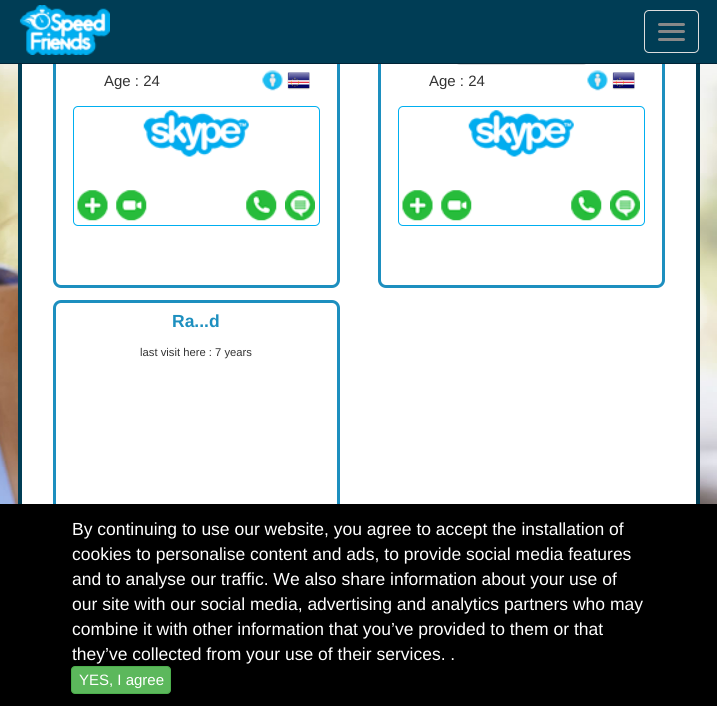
import math
import cairo

surface = cairo.ImageSurface(cairo.Format.RGB24, 717, 706)
ctx = cairo.Context(surface)
options = cairo.FontOptions()
options.set_hint_metrics(cairo.HintMetrics.OFF)
options.set_hint_style(cairo.HintStyle.NONE)
ctx.set_font_options(options)
ctx.set_miter_limit(4)


def ink(r, g, b):
    ctx.set_source_rgb(r / 255, g / 255, b / 255)


def write(x, y, s, family, size, color, bold=False, italic=False):
    ctx.select_font_face(family, cairo.FontSlant.ITALIC if italic else cairo.FontSlant.NORMAL, cairo.FontWeight.BOLD if bold else cairo.FontWeight.NORMAL)
    ctx.set_font_size(size)
    ink(*color)
    ctx.move_to(x, y)
    ctx.show_text(s)


def block(x, y, w, h, *color):
    ink(*color)
    ctx.rectangle(x, y, w, h)
    ctx.fill()


def round_path(x, y, w, h, r):
    ctx.new_sub_path()
    for i, (u, v) in enumerate([(x + w - r, y + h - r), (x + r, y + h - r), (x + r, y + r), (x + w - r, y + r)]):
        ctx.arc(u, v, r, i * math.pi / 2, (i + 1) * math.pi / 2)
    ctx.close_path()


def paste(path, x, y, w, h):
    ctx.save()
    ctx.set_source_surface(cairo.ImageSurface.create_from_png(path), x, y)
    ctx.rectangle(x, y, w, h)
    ctx.fill()
    ctx.restore()


s1 = dict(family="Liberation Sans", size=15, color=(51, 51, 51))
s2 = dict(family="Liberation Sans", size=17.5, color=(29, 143, 191), bold=True)
s3 = dict(family="Liberation Sans", size=11.25, color=(51, 51, 51))
s4 = dict(family="Liberation Sans", size=17.5, color=(255, 255, 255))
s5 = dict(family="Liberation Sans", size=15, color=(255, 255, 255))

ink(255, 255, 255)
ctx.paint()
paste("pic1.png", 0, 64, 717, 440)
block(22, 64, 674, 440, 255, 255, 255)
ctx.rectangle(20, -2, 678, 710)
ink(0, 61, 85)
ctx.set_line_width(4)
ctx.stroke()
round_path(54.5, -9.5, 284, 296, 6.5)
ink(29, 143, 191)
ctx.set_line_width(3)
ctx.stroke()
round_path(379.5, -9.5, 284, 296, 6.5)
ctx.stroke()
round_path(455.5, -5.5, 132, 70, 4.5)
ink(221, 221, 221)
ctx.set_line_width(1)
ctx.stroke()
block(0, 0, 717, 63, 0, 61, 85)
block(0, 63, 717, 1, 0, 36, 55)
paste("pic2.png", 19, 5, 91, 50)
round_path(644.5, 10.5, 54, 42, 4.5)
ink(221, 221, 221)
ctx.stroke()
ink(136, 136, 136)
round_path(658, 23, 27, 3, 1.5)
ctx.fill()
round_path(658, 30, 27, 3, 1.5)
ctx.fill()
round_path(658, 38, 27, 3, 1.5)
ctx.fill()
write(104, 86, "Age : 24", **s1)
paste("pic3.png", 262, 70, 21, 21)
paste("pic4.png", 287, 72, 23, 18)
round_path(73.5, 106.5, 246, 119, 4.5)
ink(0, 175, 240)
ctx.stroke()
paste("pic5.png", 143, 110, 106, 47)
paste("pic6.png", 77, 190, 31, 31)
paste("pic7.png", 116, 190, 31, 31)
paste("pic8.png", 246, 190, 31, 31)
paste("pic9.png", 285, 190, 30, 31)
write(429, 86, "Age : 24", **s1)
paste("pic3.png", 587, 70, 21, 21)
paste("pic4.png", 612, 72, 23, 18)
round_path(398.5, 106.5, 246, 119, 4.5)
ink(0, 175, 240)
ctx.stroke()
paste("pic10.png", 468, 110, 106, 47)
paste("pic6.png", 402, 190, 31, 31)
paste("pic7.png", 441, 190, 31, 31)
paste("pic8.png", 571, 190, 31, 31)
paste("pic9.png", 610, 190, 30, 31)
round_path(54.5, 301.5, 284, 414, 6.5)
ink(29, 143, 191)
ctx.set_line_width(3)
ctx.stroke()
write(172, 327, "Ra...d", **s2)
write(140, 356, "last visit here : 7 years", **s3)
block(0, 504, 717, 202, 0, 0, 0)
write(72, 535, "By continuing to use our website, you agree to accept the installation of", **s4)
write(72, 560, "cookies to personalise content and ads, to provide social media features", **s4)
write(72, 585, "and to analyse our traffic. We also share information about your use of", **s4)
write(72, 610, "our site with our social media, advertising and analytics partners who may", **s4)
write(72, 635, "combine it with other information that you’ve provided to them or that", **s4)
write(72, 660, "they’ve collected from your use of their services. .", **s4)
ink(92, 184, 92)
round_path(71.5, 666.5, 99, 27, 3.5)
ctx.fill_preserve()
ink(76, 174, 76)
ctx.set_line_width(1)
ctx.stroke()
write(79, 685, "YES, I agree", **s5)
surface.write_to_png("screenshot.png")
